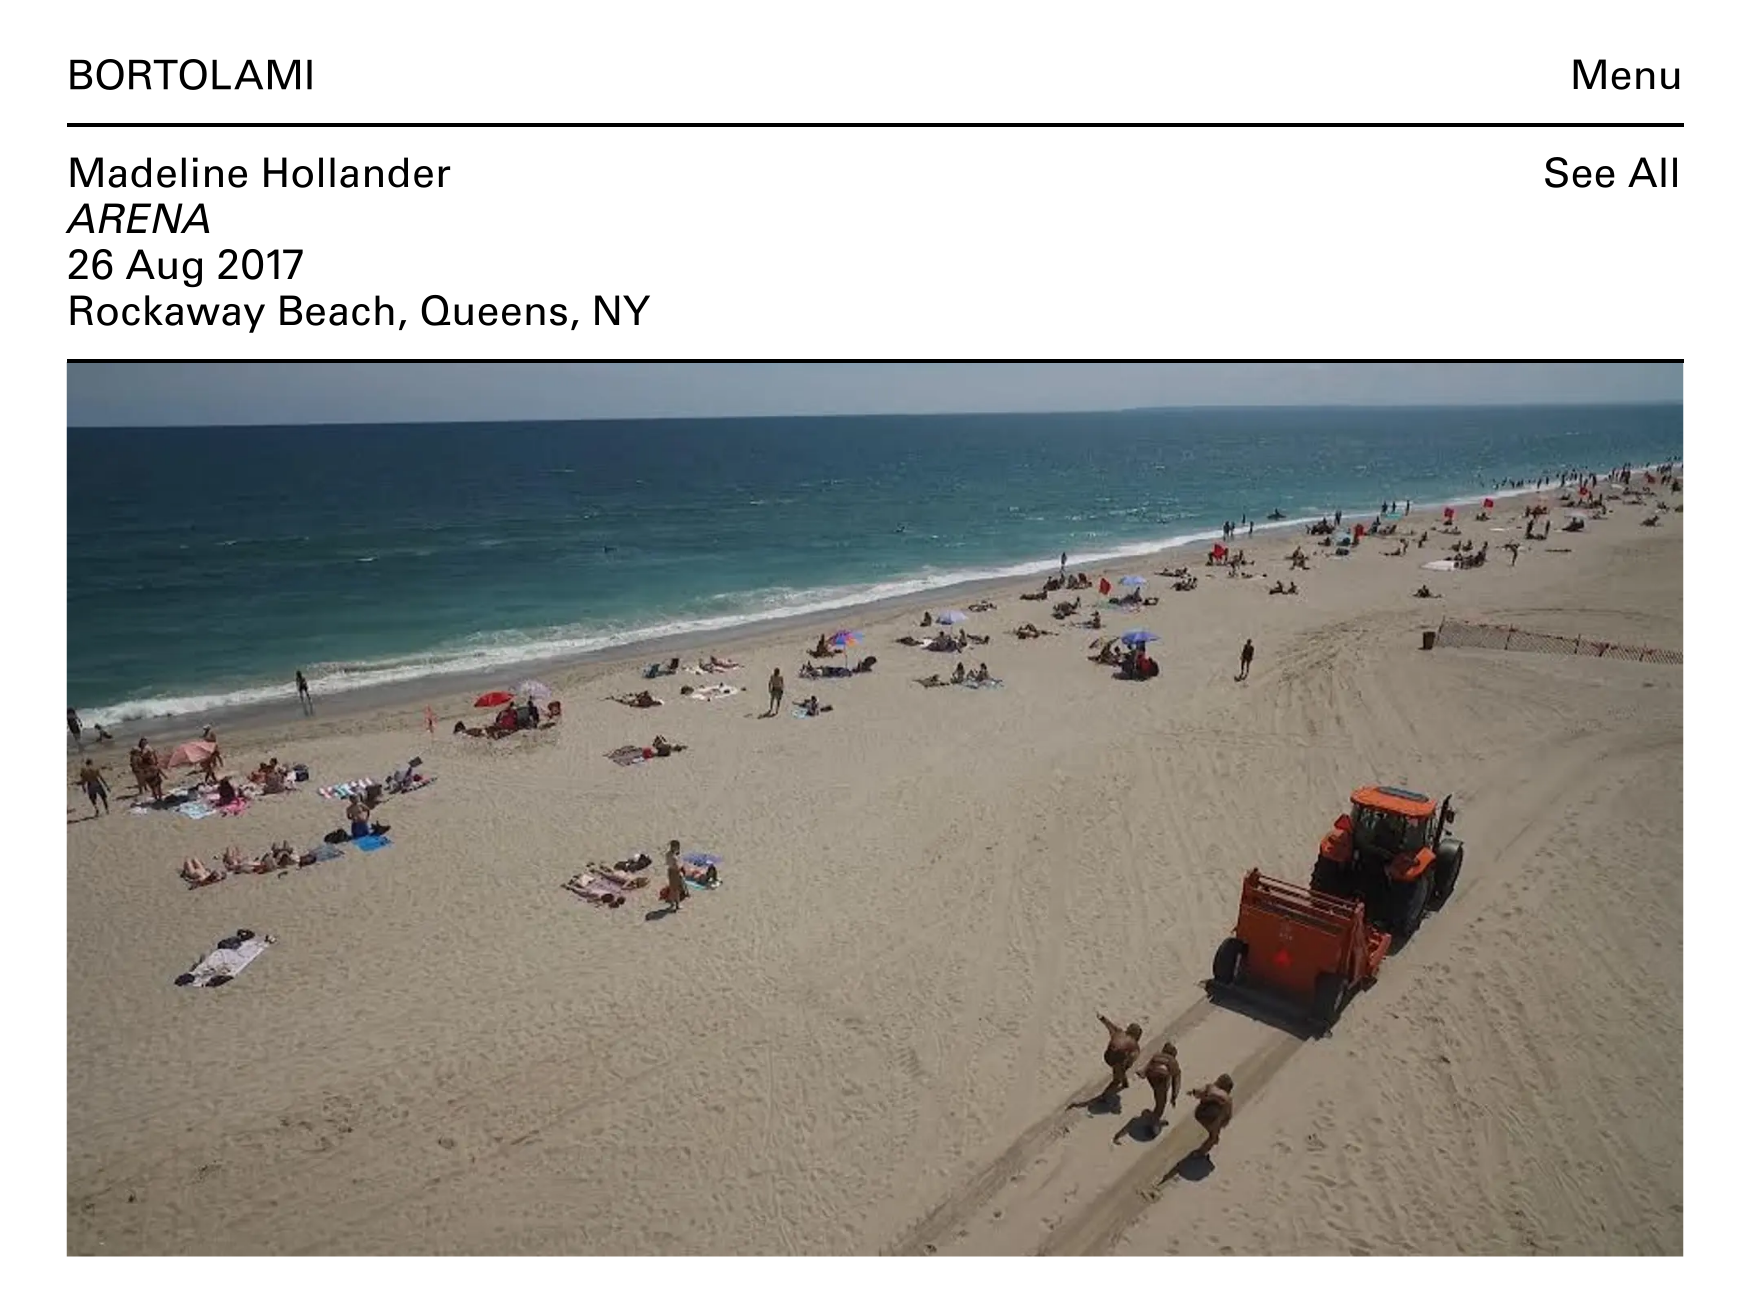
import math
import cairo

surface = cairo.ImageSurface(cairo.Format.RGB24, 1750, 1316)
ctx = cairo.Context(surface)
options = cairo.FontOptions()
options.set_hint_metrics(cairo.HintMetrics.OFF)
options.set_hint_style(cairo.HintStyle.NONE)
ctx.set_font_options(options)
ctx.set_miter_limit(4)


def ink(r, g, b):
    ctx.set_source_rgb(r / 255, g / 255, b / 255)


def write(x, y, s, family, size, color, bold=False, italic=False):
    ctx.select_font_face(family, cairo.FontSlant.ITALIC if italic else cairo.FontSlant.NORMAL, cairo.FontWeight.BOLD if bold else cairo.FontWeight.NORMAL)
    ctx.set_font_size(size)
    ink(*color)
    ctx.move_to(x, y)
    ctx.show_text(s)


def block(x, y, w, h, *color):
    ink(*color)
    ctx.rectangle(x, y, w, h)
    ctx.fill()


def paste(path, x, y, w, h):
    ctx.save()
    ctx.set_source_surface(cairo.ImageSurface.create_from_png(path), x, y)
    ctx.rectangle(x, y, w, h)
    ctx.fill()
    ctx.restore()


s1 = dict(family="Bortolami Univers", size=40.75, color=(0, 0, 0))
s2 = dict(family="Bortolami Univers", size=40.75, color=(0, 0, 0), italic=True)

ink(255, 255, 255)
ctx.paint()
paste("pic1.png", 70, 59, 242, 31)
write(1570, 89, "Menu", **s1)
block(67, 123, 1617, 4, 0, 0, 0)
write(67, 187, "Madeline Hollander", **s1)
write(67, 233, "ARENA", **s2)
write(67, 279, "26 Aug 2017", **s1)
write(67, 325, "Rockaway Beach, Queens, NY", **s1)
write(1543, 187, "See All", **s1)
paste("pic2.png", 66, 362, 1618, 895)
block(67, 359, 1617, 4, 0, 0, 0)
surface.write_to_png("screenshot.png")
